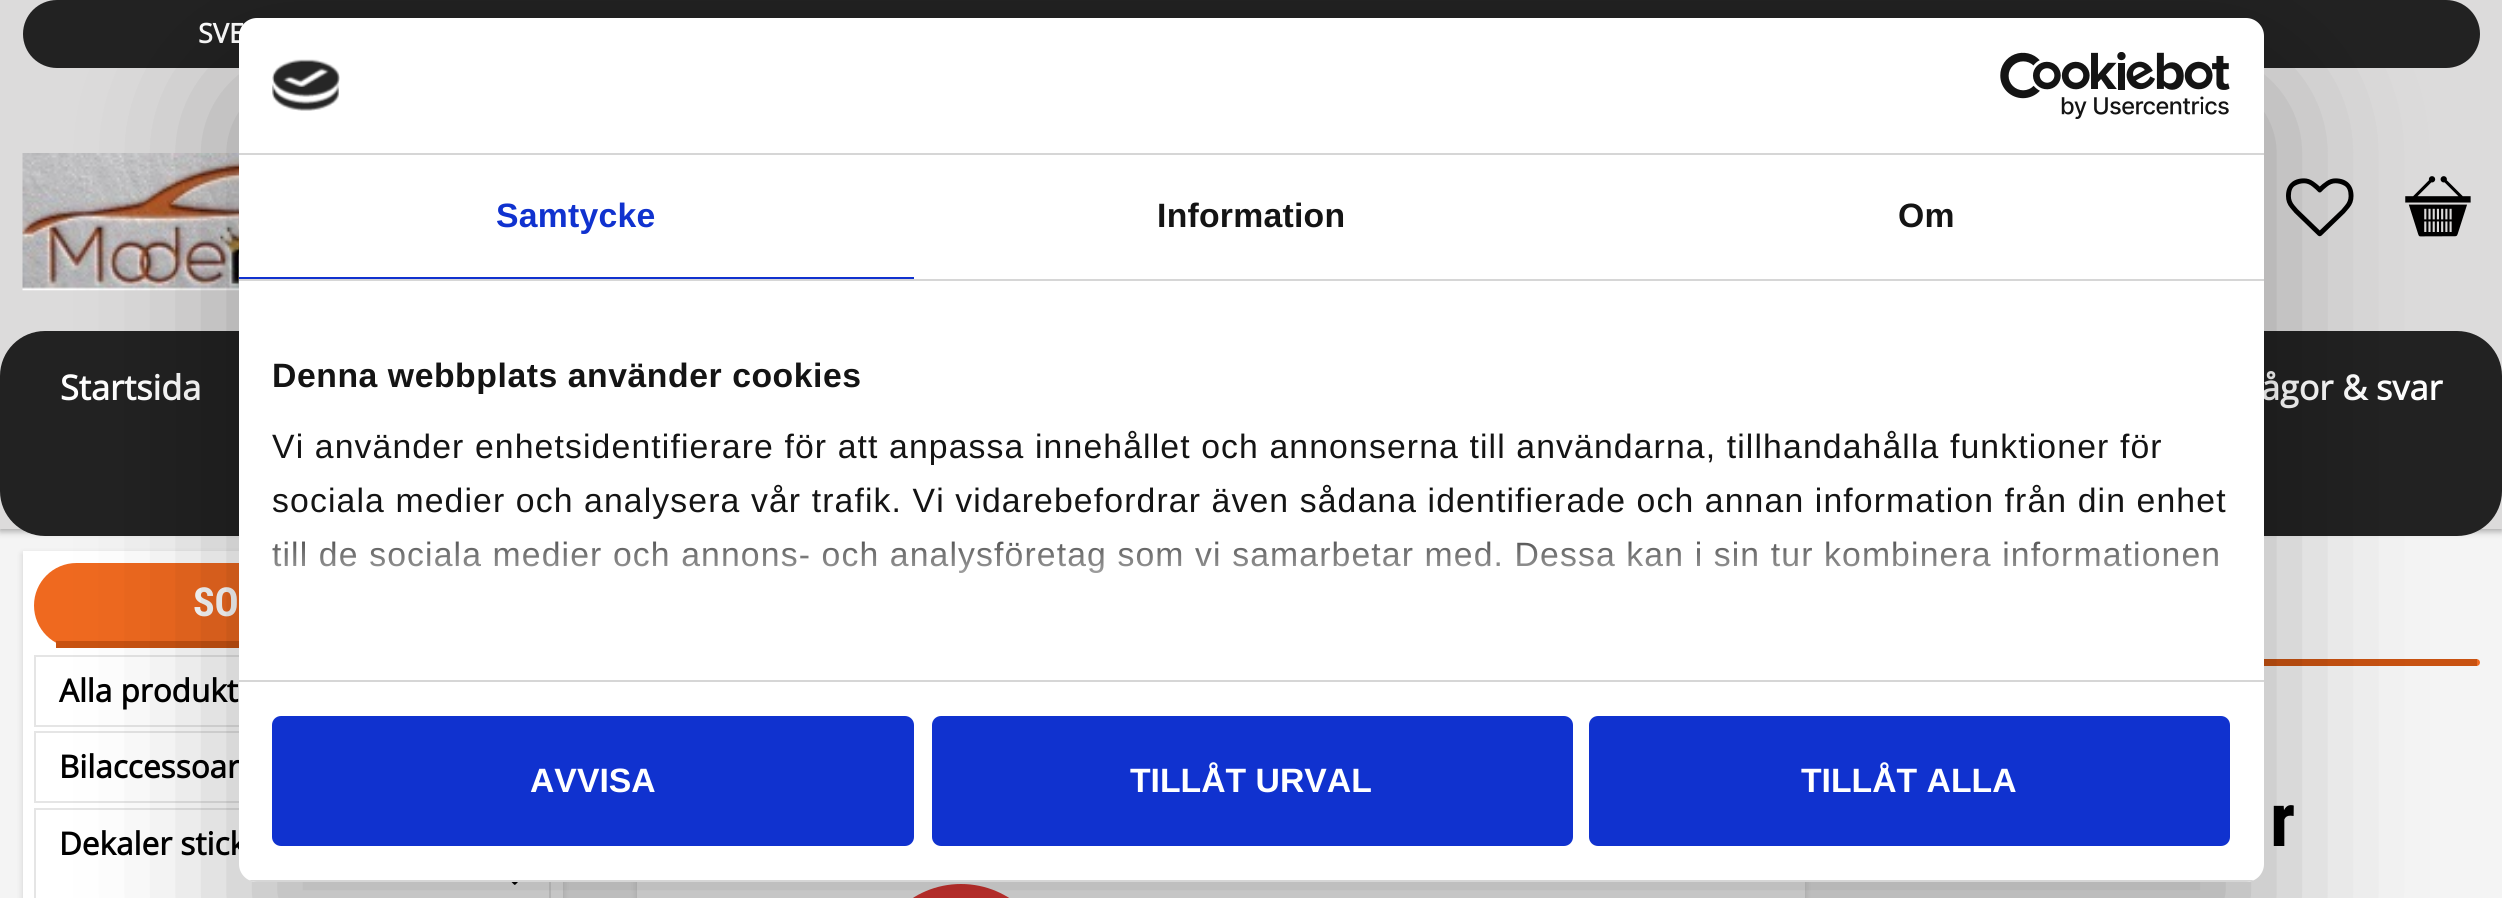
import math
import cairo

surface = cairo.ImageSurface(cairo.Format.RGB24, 2502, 898)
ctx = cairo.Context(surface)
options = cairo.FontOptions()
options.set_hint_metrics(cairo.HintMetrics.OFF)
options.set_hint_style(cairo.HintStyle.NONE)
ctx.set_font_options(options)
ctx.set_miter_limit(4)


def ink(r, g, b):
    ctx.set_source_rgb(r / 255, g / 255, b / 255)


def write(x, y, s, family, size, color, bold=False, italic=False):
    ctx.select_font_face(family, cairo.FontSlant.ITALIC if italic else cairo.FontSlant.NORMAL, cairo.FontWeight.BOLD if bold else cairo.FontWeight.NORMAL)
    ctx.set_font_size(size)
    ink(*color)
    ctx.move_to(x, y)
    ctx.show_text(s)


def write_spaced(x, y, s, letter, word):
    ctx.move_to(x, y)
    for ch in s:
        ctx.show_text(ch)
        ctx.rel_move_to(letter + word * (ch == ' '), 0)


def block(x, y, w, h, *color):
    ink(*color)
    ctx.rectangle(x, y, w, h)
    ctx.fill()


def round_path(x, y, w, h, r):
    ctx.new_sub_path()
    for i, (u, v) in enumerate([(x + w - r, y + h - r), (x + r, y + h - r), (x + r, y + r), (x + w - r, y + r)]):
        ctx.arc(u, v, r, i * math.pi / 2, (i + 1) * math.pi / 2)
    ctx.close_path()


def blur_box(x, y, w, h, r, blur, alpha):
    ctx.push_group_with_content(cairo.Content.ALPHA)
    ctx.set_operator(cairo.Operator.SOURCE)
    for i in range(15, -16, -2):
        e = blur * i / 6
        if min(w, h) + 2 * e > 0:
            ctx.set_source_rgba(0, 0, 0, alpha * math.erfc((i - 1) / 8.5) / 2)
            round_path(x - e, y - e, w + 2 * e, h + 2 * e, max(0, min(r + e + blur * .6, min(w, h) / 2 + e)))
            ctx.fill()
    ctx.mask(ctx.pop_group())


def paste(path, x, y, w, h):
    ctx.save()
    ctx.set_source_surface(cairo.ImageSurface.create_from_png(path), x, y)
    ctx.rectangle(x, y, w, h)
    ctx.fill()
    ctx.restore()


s1 = dict(family="Open Sans", size=27, color=(255, 255, 255), bold=True)
s2 = dict(family="Open Sans", size=34.25, color=(255, 255, 255), bold=True)
s3 = dict(family="Roboto Condensed", size=40, color=(255, 255, 255), bold=True)
s4 = dict(family="Open Sans", size=31.5, color=(0, 0, 0), bold=True)
s5 = dict(family="Roboto Condensed", size=76, color=(0, 0, 0), bold=True)
s6 = dict(family="Liberation Sans", size=33.75, color=(255, 255, 255), bold=True)

ink(244, 244, 244)
ctx.paint()
ink(0, 0, 0)
blur_box(0, 2, 2502, 529, 0, 3.5, 0.35)
block(0, 0, 2502, 529, 220, 219, 219)
ink(34, 34, 34)
round_path(23, 0, 2457, 68, 34)
ctx.fill()
write(198, 43, "SVE", **s1)
paste("pic1.png", 22, 153, 217, 138)
paste("pic2.png", 2286, 178, 68, 59)
paste("pic3.png", 2405, 176, 66, 61)
ink(34, 34, 34)
round_path(0, 331, 2502, 205, 45)
ctx.fill()
write(60, 400, "Startsida", **s2)
write(2261, 400, "ågor & svar", **s2)
ink(0, 0, 0)
blur_box(23, 554, 540, 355, 0, 3.5, 0.15)
block(23, 551, 540, 347, 255, 255, 255)
ink(239, 105, 31)
round_path(34, 563, 517, 85, 42.5)
ctx.fill()
block(56, 641, 183, 7, 200, 82, 17)
write(193, 616, "SO", **s3)
ctx.rectangle(35, 656, 515, 70)
ink(229, 229, 229)
ctx.stroke()
write(59, 702, "Alla produkt", **s4)
ctx.rectangle(35, 732, 515, 70)
ink(229, 229, 229)
ctx.stroke()
write(59, 778, "Bilaccessoar", **s4)
ctx.rectangle(35, 809, 515, 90)
ink(229, 229, 229)
ctx.stroke()
write(59, 855, "Dekaler stick", **s4)
paste("pic4.png", 511, 882, 7, 3)
ink(239, 105, 31)
round_path(637, 659, 1843, 7, 3.5)
ctx.fill()
ink(0, 0, 0)
blur_box(637, 662, 1168, 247, 0, 3.5, 0.15)
block(637, 882, 1168, 16, 255, 255, 255)
ink(229, 57, 53)
round_path(871, 884, 180, 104, 90)
ctx.fill()
block(2264, 659, 213, 7, 200, 82, 17)
write(2270, 846, "r", **s5)
ink(0, 0, 0)
blur_box(239, 90, 2025, 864, 18, 76.5, 0.3)
ink(255, 255, 255)
round_path(239, 18, 2025, 864, 18)
ctx.fill()
block(239, 153, 2025, 2, 214, 214, 214)
paste("pic5.png", 272, 59, 68, 52)
paste("pic6.png", 2000, 52, 230, 67)
block(239, 279, 2025, 2, 214, 214, 214)
block(239, 277, 675, 2, 16, 50, 207)
ctx.select_font_face("Liberation Sans", cairo.FontSlant.NORMAL, cairo.FontWeight.BOLD)
ctx.set_font_size(33.75)
write_spaced(496, 227, "Samtycke", 0.25, 0)
ink(20, 20, 20)
write_spaced(1157, 227, "Information", 0.25, 0)
write_spaced(1898, 227, "Om", 0.25, 0)
block(239, 680, 2025, 2, 214, 214, 214)
ink(20, 20, 20)
write_spaced(272, 387, "Denna webbplats använder cookies", 0.55, 0)
ctx.select_font_face("Liberation Sans")
write_spaced(272, 458, "Vi använder enhetsidentifierare för att anpassa innehållet och annonserna till användarna, tillhandahålla funktioner för", 1.12, 0)
write_spaced(272, 512, "sociala medier och analysera vår trafik. Vi vidarebefordrar även sådana identifierade och annan information från din enhet", 1.12, 0)
write_spaced(272, 566, "till de sociala medier och annons- och analysföretag som vi samarbetar med. Dessa kan i sin tur kombinera informationen", 1.12, 0)
gradient = cairo.LinearGradient(1236, 680, 1236, 511)
gradient.add_color_stop_rgba(0, 1, 1, 1, 1)
gradient.add_color_stop_rgba(0.5, 1, 1, 1, 0.8)
gradient.add_color_stop_rgba(1, 1, 1, 1, 0)
ctx.set_source(gradient)
ctx.rectangle(272, 513, 1947, 60)
ctx.fill()
ctx.save()
round_path(239, 18, 2025, 864, 18)
ctx.clip()
block(249, 880, 2005, 2, 214, 214, 214)
ctx.restore()
ink(16, 50, 207)
round_path(274.5, 718.5, 637, 125, 6.5)
ctx.fill_preserve()
ctx.set_line_width(5)
ctx.stroke()
write(530, 792, "AVVISA", **s6)
ink(16, 50, 207)
round_path(934.5, 718.5, 636, 125, 6.5)
ctx.fill_preserve()
ctx.stroke()
write(1130, 792, "TILLÅT URVAL", **s6)
ink(16, 50, 207)
round_path(1591.5, 718.5, 636, 125, 6.5)
ctx.fill_preserve()
ctx.stroke()
write(1801, 792, "TILLÅT ALLA", **s6)
surface.write_to_png("screenshot.png")
